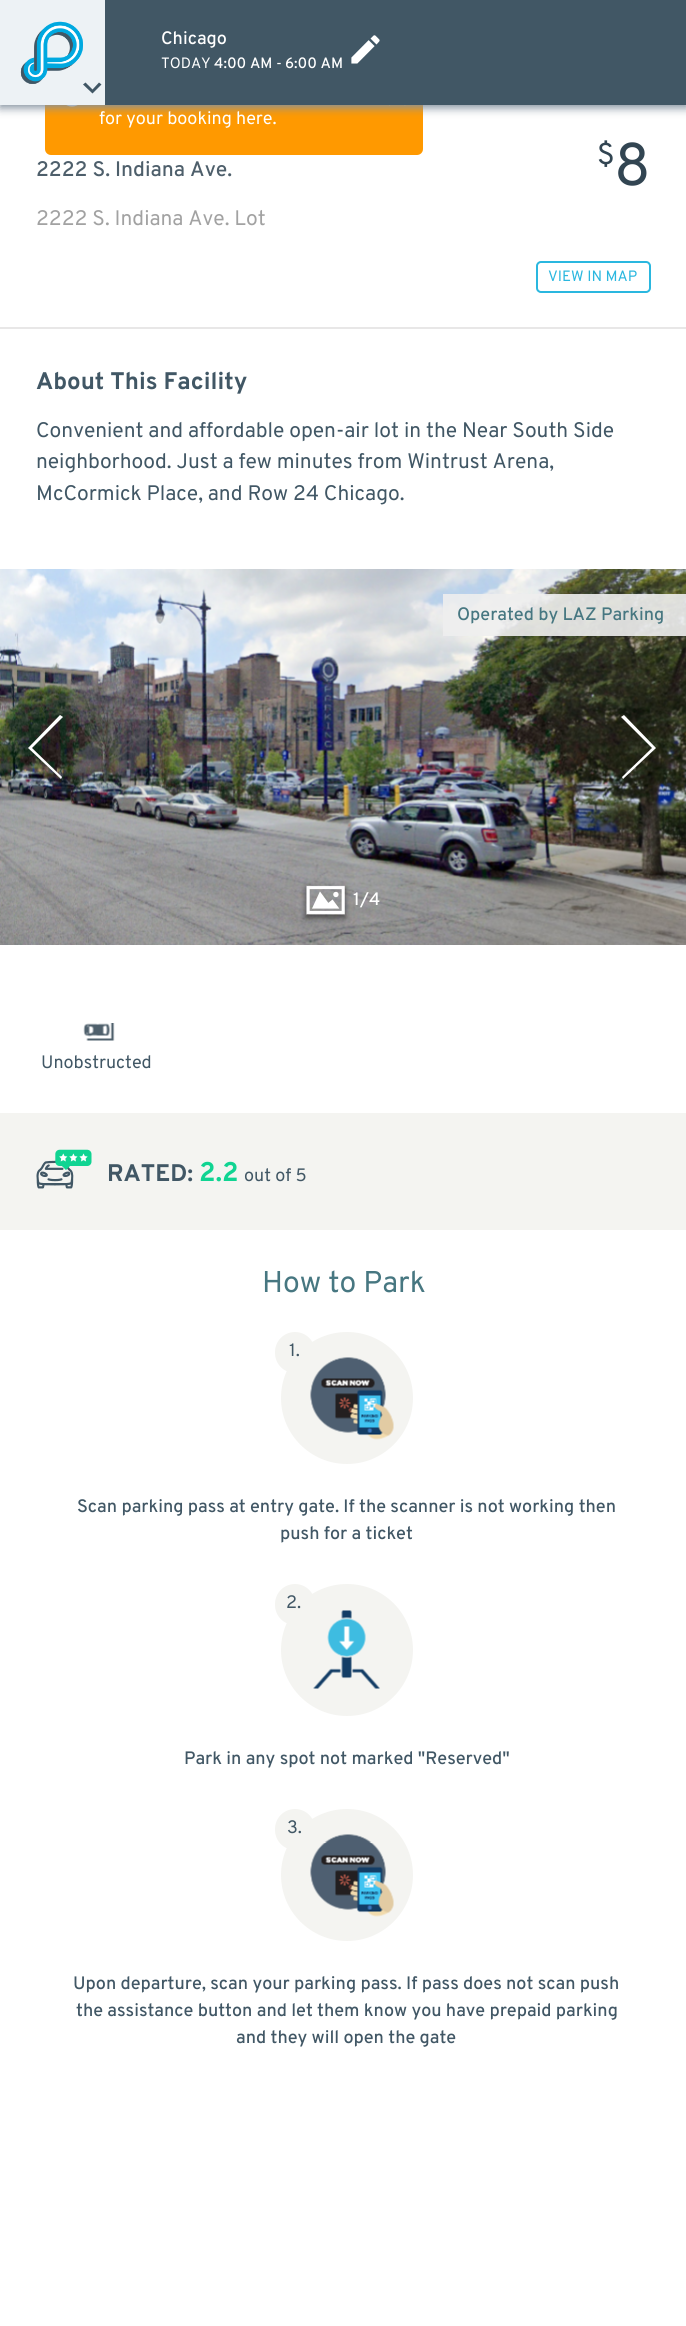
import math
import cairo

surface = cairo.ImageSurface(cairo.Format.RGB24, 686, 2326)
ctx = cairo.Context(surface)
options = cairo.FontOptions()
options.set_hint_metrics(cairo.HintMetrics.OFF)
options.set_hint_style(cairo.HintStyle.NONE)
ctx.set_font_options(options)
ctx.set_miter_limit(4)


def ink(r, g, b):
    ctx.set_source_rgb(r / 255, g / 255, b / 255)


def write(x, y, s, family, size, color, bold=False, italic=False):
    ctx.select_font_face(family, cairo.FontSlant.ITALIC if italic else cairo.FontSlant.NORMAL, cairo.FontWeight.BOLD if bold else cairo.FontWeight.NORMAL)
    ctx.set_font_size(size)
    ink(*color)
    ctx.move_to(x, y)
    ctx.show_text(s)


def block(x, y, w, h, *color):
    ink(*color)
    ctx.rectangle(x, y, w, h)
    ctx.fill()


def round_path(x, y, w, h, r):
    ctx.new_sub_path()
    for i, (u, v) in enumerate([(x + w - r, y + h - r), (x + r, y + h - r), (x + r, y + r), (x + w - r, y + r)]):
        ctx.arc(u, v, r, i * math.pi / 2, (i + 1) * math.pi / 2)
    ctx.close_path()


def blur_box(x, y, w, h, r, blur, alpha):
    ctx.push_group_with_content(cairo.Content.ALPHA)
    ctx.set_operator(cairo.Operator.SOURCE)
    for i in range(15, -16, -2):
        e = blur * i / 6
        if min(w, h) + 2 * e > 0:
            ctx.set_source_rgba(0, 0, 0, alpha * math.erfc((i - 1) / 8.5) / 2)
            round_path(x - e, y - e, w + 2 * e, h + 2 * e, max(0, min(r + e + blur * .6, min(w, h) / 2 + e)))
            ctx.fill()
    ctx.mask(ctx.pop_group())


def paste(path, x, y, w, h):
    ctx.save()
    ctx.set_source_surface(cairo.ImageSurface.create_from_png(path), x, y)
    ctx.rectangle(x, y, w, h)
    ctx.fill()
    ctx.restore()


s1 = dict(family="Overpass Medium", size=18, color=(255, 255, 255))
s2 = dict(family="Overpass", size=15, color=(255, 255, 255))
s3 = dict(family="Overpass Medium", size=15, color=(255, 255, 255))
s4 = dict(family="Overpass", size=18, color=(255, 255, 255))
s5 = dict(family="Overpass Medium", size=21, color=(78, 95, 107))
s6 = dict(family="Overpass", size=21, color=(162, 162, 162))
s7 = dict(family="Overpass", size=30, color=(50, 69, 82))
s8 = dict(family="Overpass", size=60, color=(50, 69, 82))
s9 = dict(family="Overpass", size=15, color=(42, 183, 223))
s10 = dict(family="Overpass", size=24, color=(65, 87, 101), bold=True)
s11 = dict(family="Overpass", size=21, color=(65, 87, 101))
s12 = dict(family="Overpass Medium", size=18, color=(71, 119, 129))
s13 = dict(family="Overpass", size=18, color=(65, 87, 101))
s14 = dict(family="Overpass", size=27, color=(16, 212, 146), bold=True)
s15 = dict(family="Overpass", size=30, color=(71, 119, 129))
s16 = dict(family="Overpass Medium", size=18, color=(65, 87, 101))

ink(255, 255, 255)
ctx.paint()
ink(255, 153, 0)
round_path(45, 59, 378, 96, 6)
ctx.fill()
paste("pic3.png", 66, 105, 12, 2)
paste("pic4.png", 389, 105, 17, 1)
ink(132, 145, 158)
blur_box(0, 3, 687, 105, 0, 4.5, 1)
block(105, 0, 581, 105, 65, 87, 101)
block(0, 0, 105, 105, 237, 242, 245)
paste("pic1.png", 20, 21, 63, 63)
ink(65, 87, 101)
ctx.new_path()
ctx.move_to(99, 82.5)
ctx.line_to(101.5, 84.5)
ctx.line_to(92.5, 93.5)
ctx.line_to(83, 84.5)
ctx.line_to(85.5, 82.5)
ctx.line_to(92.5, 89.5)
ctx.close_path()
ctx.fill()
write(161, 44, "Chicago", **s1)
write(161, 68, "TODAY", **s2)
write(214, 68, "4:00 AM", **s3)
write(276, 68, "-", **s2)
write(285, 68, "6:00 AM", **s3)
paste("pic2.png", 351, 35, 29, 29)
write(99, 124, "for your booking here.", **s4)
block(0, 327, 686, 2, 232, 231, 231)
write(36, 176, "2222 S. Indiana Ave.", **s5)
write(36, 225, "2222 S. Indiana Ave. Lot", **s6)
write(597, 164, "$", **s7)
write(614, 185, "8", **s8)
round_path(537, 262, 113, 30, 4)
ink(42, 183, 223)
ctx.stroke()
write(548, 281, "VIEW IN MAP", **s9)
write(36, 389, "About This Facility", **s10)
write(36, 437, "Convenient and affordable open-air lot in the Near South Side", **s11)
write(36, 468, "neighborhood. Just a few minutes from Wintrust Arena,", **s11)
write(36, 500, "McCormick Place, and Row 24 Chicago.", **s11)
paste("pic5.png", 0, 569, 686, 376)
ctx.set_source_rgba(0.937, 0.937, 0.937, 0.9)
ctx.rectangle(443, 594, 243, 42)
ctx.fill()
write(457, 620, "Operated by LAZ Parking", **s12)
ink(255, 255, 255)
ctx.new_path()
ctx.move_to(32, 748)
ctx.line_to(63, 717)
ctx.line_to(60, 715)
ctx.line_to(28, 748)
ctx.line_to(61, 779)
ctx.line_to(62, 777)
ctx.close_path()
ctx.fill()
ctx.new_path()
ctx.move_to(652, 748)
ctx.line_to(621, 717)
ctx.line_to(624, 715)
ctx.line_to(656, 748)
ctx.line_to(623, 779)
ctx.line_to(622, 777)
ctx.close_path()
ctx.fill()
ctx.save()
ctx.set_fill_rule(cairo.FillRule.EVEN_ODD)
ctx.new_path()
ctx.move_to(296, 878)
ctx.line_to(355, 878)
ctx.line_to(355, 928)
ctx.line_to(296, 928)
ctx.close_path()
ctx.move_to(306, 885)
ctx.line_to(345, 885)
ctx.line_to(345, 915)
ctx.line_to(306, 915)
ctx.close_path()
ctx.clip()
ink(0, 0, 0)
blur_box(306, 888, 39, 30, 0, 3, 0.5)
ctx.restore()
paste("pic6.png", 306, 886, 39, 28)
write(353, 905, "1/4", **s1)
paste("pic7.png", 83, 1023, 32, 18)
write(41, 1068, "Unobstructed", **s13)
block(0, 1113, 686, 117, 244, 244, 241)
paste("pic8.png", 36, 1149, 56, 40)
write(107, 1181, "RATED:", **s10)
write(199, 1181, "2.2", **s14)
write(244, 1181, "out of 5", **s13)
write(262, 1292, "How to Park", **s15)
ink(244, 244, 241)
ctx.new_path()
ctx.arc(347, 1398, 66, 0, 2 * math.pi)
ctx.fill()
paste("pic9.png", 310, 1357, 84, 83)
round_path(275, 1332, 40, 41, 20)
ctx.fill()
write(289, 1356, "1.", **s13)
write(77, 1512, "Scan parking pass at entry gate. If the scanner is not working then", **s16)
write(280, 1539, "push for a ticket", **s16)
ink(244, 244, 241)
ctx.new_path()
ctx.arc(347, 1650, 66, 0, 2 * math.pi)
ctx.fill()
paste("pic10.png", 313, 1610, 67, 79)
round_path(275, 1584, 40, 41, 20)
ctx.fill()
write(286, 1608, "2.", **s13)
write(184, 1764, "Park in any spot not marked \"Reserved\"", **s16)
ink(244, 244, 241)
ctx.new_path()
ctx.arc(347, 1875, 66, 0, 2 * math.pi)
ctx.fill()
paste("pic11.png", 310, 1834, 84, 83)
round_path(275, 1809, 40, 41, 20)
ctx.fill()
write(287, 1833, "3.", **s13)
write(73, 1989, "Upon departure, scan your parking pass. If pass does not scan push", **s16)
write(76, 2016, "the assistance button and let them know you have prepaid parking", **s16)
write(236, 2043, "and they will open the gate", **s16)
surface.write_to_png("screenshot.png")
